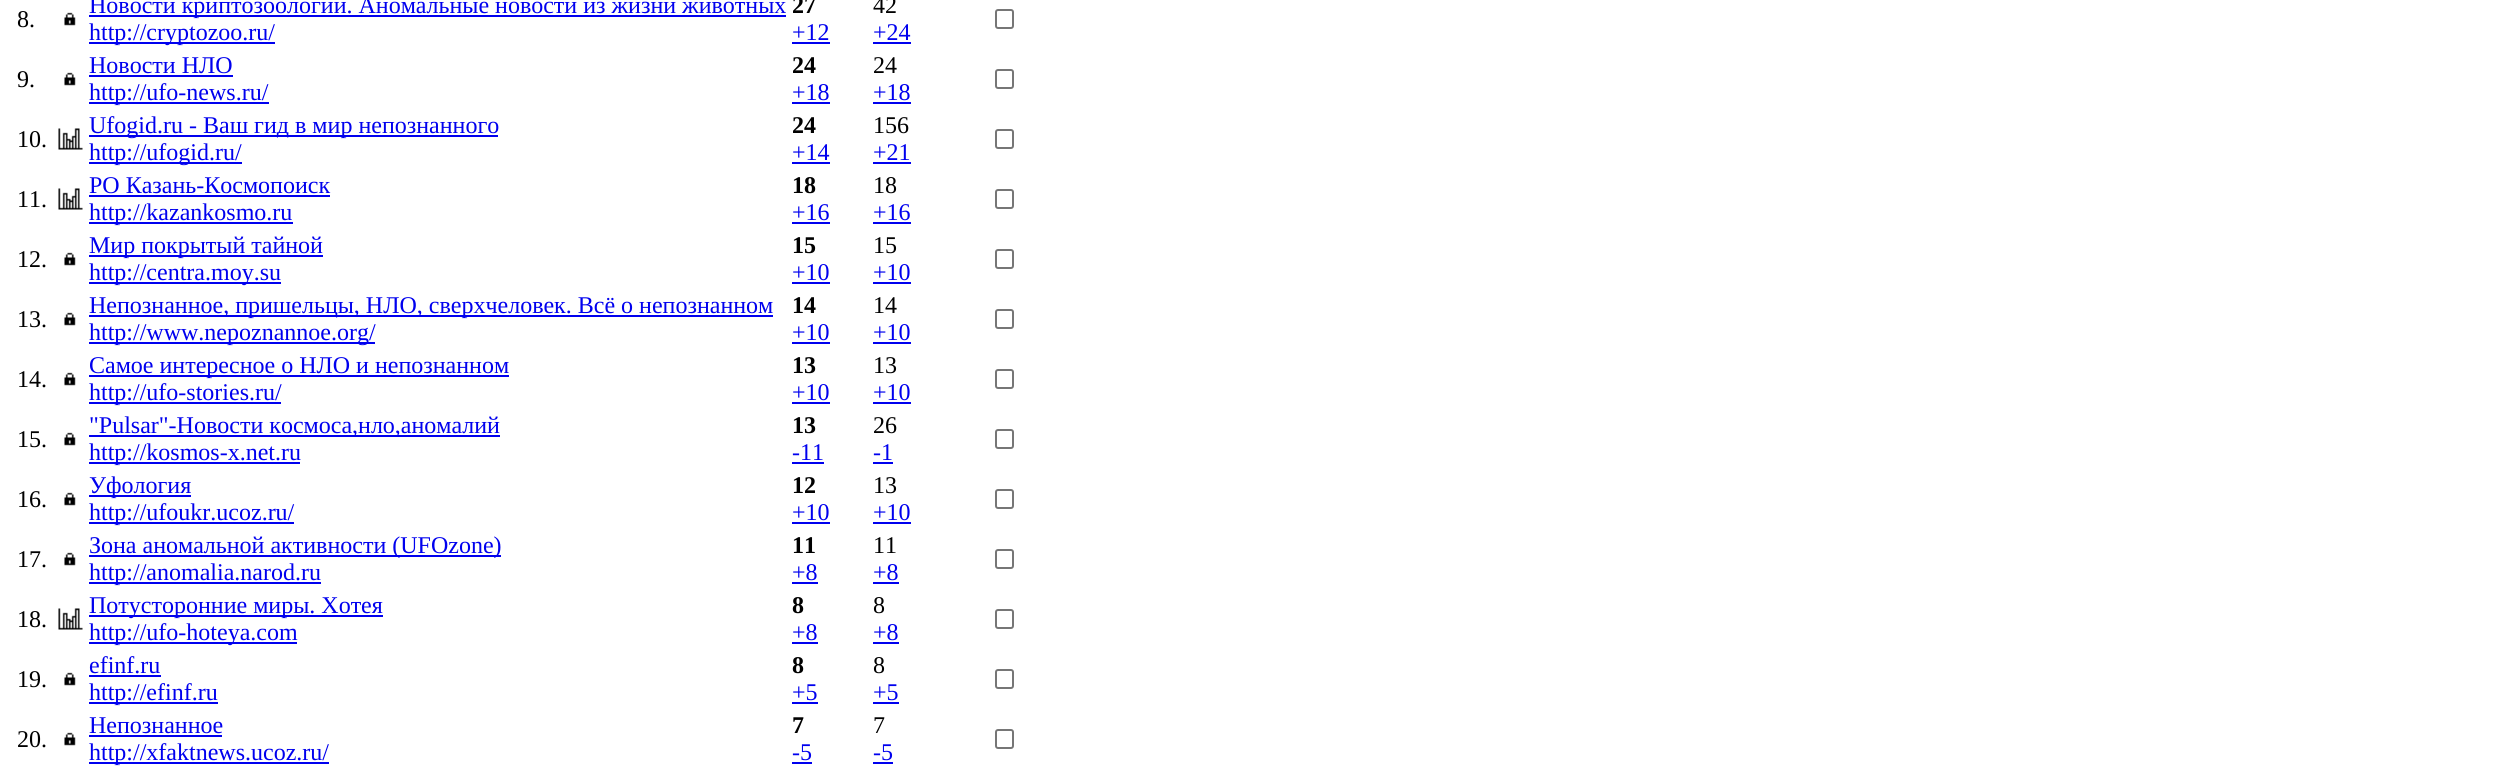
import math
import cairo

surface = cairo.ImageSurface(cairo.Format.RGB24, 2498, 774)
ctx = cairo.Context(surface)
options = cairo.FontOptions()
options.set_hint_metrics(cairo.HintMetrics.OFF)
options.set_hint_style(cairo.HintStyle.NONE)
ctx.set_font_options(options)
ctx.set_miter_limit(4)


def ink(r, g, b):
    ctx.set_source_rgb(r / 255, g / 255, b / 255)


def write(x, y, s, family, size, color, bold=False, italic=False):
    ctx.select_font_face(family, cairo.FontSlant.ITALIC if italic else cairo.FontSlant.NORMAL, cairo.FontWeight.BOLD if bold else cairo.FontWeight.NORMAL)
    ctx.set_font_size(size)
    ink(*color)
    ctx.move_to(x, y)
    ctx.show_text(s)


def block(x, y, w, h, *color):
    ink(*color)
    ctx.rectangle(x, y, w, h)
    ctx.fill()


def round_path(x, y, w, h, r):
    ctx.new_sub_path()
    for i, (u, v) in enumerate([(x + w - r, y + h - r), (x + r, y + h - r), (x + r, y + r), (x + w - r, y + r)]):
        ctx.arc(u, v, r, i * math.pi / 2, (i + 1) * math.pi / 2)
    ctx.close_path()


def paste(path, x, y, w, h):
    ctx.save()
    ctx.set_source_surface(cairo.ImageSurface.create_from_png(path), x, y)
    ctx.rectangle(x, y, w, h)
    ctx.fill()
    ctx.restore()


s1 = dict(family="Liberation Serif", size=24, color=(0, 0, 0))
s2 = dict(family="Liberation Serif", size=24, color=(0, 0, 238))
s3 = dict(family="Liberation Serif", size=24, color=(0, 0, 0), bold=True)

ink(255, 255, 255)
ctx.paint()
write(17, 27, "8.", **s1)
paste("pic1.png", 64, 12, 12, 14)
block(89, 15, 697, 2, 0, 0, 238)
write(89, 13, "Новости криптозоологии. Аномальные новости из жизни животных", **s2)
block(89, 42, 186, 2, 0, 0, 238)
write(89, 40, "http://cryptozoo.ru/", **s2)
write(792, 13, "27", **s3)
write(792, 40, "+12", **s2)
block(792, 42, 38, 2, 0, 0, 238)
write(873, 13, "42", **s1)
write(873, 40, "+24", **s2)
block(873, 42, 38, 2, 0, 0, 238)
round_path(996, 10, 17, 18, 2)
ink(118, 118, 118)
ctx.stroke()
write(17, 87, "9.", **s1)
paste("pic1.png", 64, 72, 12, 14)
write(89, 73, "Новости НЛО", **s2)
block(89, 75, 144, 2, 0, 0, 238)
block(89, 102, 180, 2, 0, 0, 238)
write(89, 100, "http://ufo-news.ru/", **s2)
write(792, 73, "24", **s3)
write(792, 100, "+18", **s2)
block(792, 102, 38, 2, 0, 0, 238)
write(873, 73, "24", **s1)
write(873, 100, "+18", **s2)
block(873, 102, 38, 2, 0, 0, 238)
round_path(996, 70, 17, 18, 2)
ink(118, 118, 118)
ctx.stroke()
write(17, 147, "10.", **s1)
paste("pic2.png", 58, 128, 25, 22)
block(89, 135, 409, 2, 0, 0, 238)
write(89, 133, "Ufogid.ru - Ваш гид в мир непознанного", **s2)
block(89, 162, 153, 2, 0, 0, 238)
write(89, 160, "http://ufogid.ru/", **s2)
write(792, 133, "24", **s3)
write(792, 160, "+14", **s2)
block(792, 162, 38, 2, 0, 0, 238)
write(873, 133, "156", **s1)
write(873, 160, "+21", **s2)
block(873, 162, 38, 2, 0, 0, 238)
round_path(996, 130, 17, 18, 2)
ink(118, 118, 118)
ctx.stroke()
write(17, 207, "11.", **s1)
paste("pic2.png", 58, 188, 25, 22)
write(89, 193, "РО Казань-Космопоиск", **s2)
block(89, 195, 241, 2, 0, 0, 238)
block(89, 222, 204, 2, 0, 0, 238)
write(89, 220, "http://kazankosmo.ru", **s2)
write(792, 193, "18", **s3)
write(792, 220, "+16", **s2)
block(792, 222, 38, 2, 0, 0, 238)
write(873, 193, "18", **s1)
write(873, 220, "+16", **s2)
block(873, 222, 38, 2, 0, 0, 238)
round_path(996, 190, 17, 18, 2)
ink(118, 118, 118)
ctx.stroke()
write(17, 267, "12.", **s1)
paste("pic1.png", 64, 252, 12, 14)
block(89, 255, 234, 2, 0, 0, 238)
write(89, 253, "Мир покрытый тайной", **s2)
block(89, 282, 192, 2, 0, 0, 238)
write(89, 280, "http://centra.moy.su", **s2)
write(792, 253, "15", **s3)
write(792, 280, "+10", **s2)
block(792, 282, 38, 2, 0, 0, 238)
write(873, 253, "15", **s1)
write(873, 280, "+10", **s2)
block(873, 282, 38, 2, 0, 0, 238)
round_path(996, 250, 17, 18, 2)
ink(118, 118, 118)
ctx.stroke()
write(17, 327, "13.", **s1)
paste("pic1.png", 64, 312, 12, 14)
block(89, 315, 684, 2, 0, 0, 238)
write(89, 313, "Непознанное, пришельцы, НЛО, сверхчеловек. Всё о непознанном", **s2)
block(89, 342, 286, 2, 0, 0, 238)
write(89, 340, "http://www.nepoznannoe.org/", **s2)
write(792, 313, "14", **s3)
write(792, 340, "+10", **s2)
block(792, 342, 38, 2, 0, 0, 238)
write(873, 313, "14", **s1)
write(873, 340, "+10", **s2)
block(873, 342, 38, 2, 0, 0, 238)
round_path(996, 310, 17, 18, 2)
ink(118, 118, 118)
ctx.stroke()
write(17, 387, "14.", **s1)
paste("pic1.png", 64, 372, 12, 14)
block(89, 375, 420, 2, 0, 0, 238)
write(89, 373, "Самое интересное о НЛО и непознанном", **s2)
block(89, 402, 192, 2, 0, 0, 238)
write(89, 400, "http://ufo-stories.ru/", **s2)
write(792, 373, "13", **s3)
write(792, 400, "+10", **s2)
block(792, 402, 38, 2, 0, 0, 238)
write(873, 373, "13", **s1)
write(873, 400, "+10", **s2)
block(873, 402, 38, 2, 0, 0, 238)
round_path(996, 370, 17, 18, 2)
ink(118, 118, 118)
ctx.stroke()
write(17, 447, "15.", **s1)
paste("pic1.png", 64, 432, 12, 14)
block(89, 435, 411, 2, 0, 0, 238)
write(89, 433, "\"Pulsar\"-Новости космоса,нло,аномалий", **s2)
block(89, 462, 211, 2, 0, 0, 238)
write(89, 460, "http://kosmos-x.net.ru", **s2)
write(792, 433, "13", **s3)
write(792, 460, "-11", **s2)
block(792, 462, 32, 2, 0, 0, 238)
write(873, 433, "26", **s1)
write(873, 460, "-1", **s2)
block(873, 462, 20, 2, 0, 0, 238)
round_path(996, 430, 17, 18, 2)
ink(118, 118, 118)
ctx.stroke()
write(17, 507, "16.", **s1)
paste("pic1.png", 64, 492, 12, 14)
block(89, 495, 102, 2, 0, 0, 238)
write(89, 493, "Уфология", **s2)
block(89, 522, 205, 2, 0, 0, 238)
write(89, 520, "http://ufoukr.ucoz.ru/", **s2)
write(792, 493, "12", **s3)
write(792, 520, "+10", **s2)
block(792, 522, 38, 2, 0, 0, 238)
write(873, 493, "13", **s1)
write(873, 520, "+10", **s2)
block(873, 522, 38, 2, 0, 0, 238)
round_path(996, 490, 17, 18, 2)
ink(118, 118, 118)
ctx.stroke()
write(17, 567, "17.", **s1)
paste("pic1.png", 64, 552, 12, 14)
block(89, 555, 412, 2, 0, 0, 238)
write(89, 553, "Зона аномальной активности (UFOzone)", **s2)
block(89, 582, 232, 2, 0, 0, 238)
write(89, 580, "http://anomalia.narod.ru", **s2)
write(792, 553, "11", **s3)
write(792, 580, "+8", **s2)
block(792, 582, 26, 2, 0, 0, 238)
write(873, 553, "11", **s1)
write(873, 580, "+8", **s2)
block(873, 582, 26, 2, 0, 0, 238)
round_path(996, 550, 17, 18, 2)
ink(118, 118, 118)
ctx.stroke()
write(17, 627, "18.", **s1)
paste("pic2.png", 58, 608, 25, 22)
block(89, 615, 294, 2, 0, 0, 238)
write(89, 613, "Потусторонние миры. Хотея", **s2)
block(89, 642, 208, 2, 0, 0, 238)
write(89, 640, "http://ufo-hoteya.com", **s2)
write(792, 613, "8", **s3)
write(792, 640, "+8", **s2)
block(792, 642, 26, 2, 0, 0, 238)
write(873, 613, "8", **s1)
write(873, 640, "+8", **s2)
block(873, 642, 26, 2, 0, 0, 238)
round_path(996, 610, 17, 18, 2)
ink(118, 118, 118)
ctx.stroke()
write(17, 687, "19.", **s1)
paste("pic1.png", 64, 672, 12, 14)
write(89, 673, "efinf.ru", **s2)
block(89, 675, 72, 2, 0, 0, 238)
block(89, 702, 129, 2, 0, 0, 238)
write(89, 700, "http://efinf.ru", **s2)
write(792, 673, "8", **s3)
write(792, 700, "+5", **s2)
block(792, 702, 26, 2, 0, 0, 238)
write(873, 673, "8", **s1)
write(873, 700, "+5", **s2)
block(873, 702, 26, 2, 0, 0, 238)
round_path(996, 670, 17, 18, 2)
ink(118, 118, 118)
ctx.stroke()
write(17, 747, "20.", **s1)
paste("pic1.png", 64, 732, 12, 14)
write(89, 733, "Непознанное", **s2)
block(89, 735, 133, 2, 0, 0, 238)
block(89, 762, 240, 2, 0, 0, 238)
write(89, 760, "http://xfaktnews.ucoz.ru/", **s2)
write(792, 733, "7", **s3)
write(792, 760, "-5", **s2)
block(792, 762, 20, 2, 0, 0, 238)
write(873, 733, "7", **s1)
write(873, 760, "-5", **s2)
block(873, 762, 20, 2, 0, 0, 238)
round_path(996, 730, 17, 18, 2)
ink(118, 118, 118)
ctx.stroke()
surface.write_to_png("screenshot.png")
